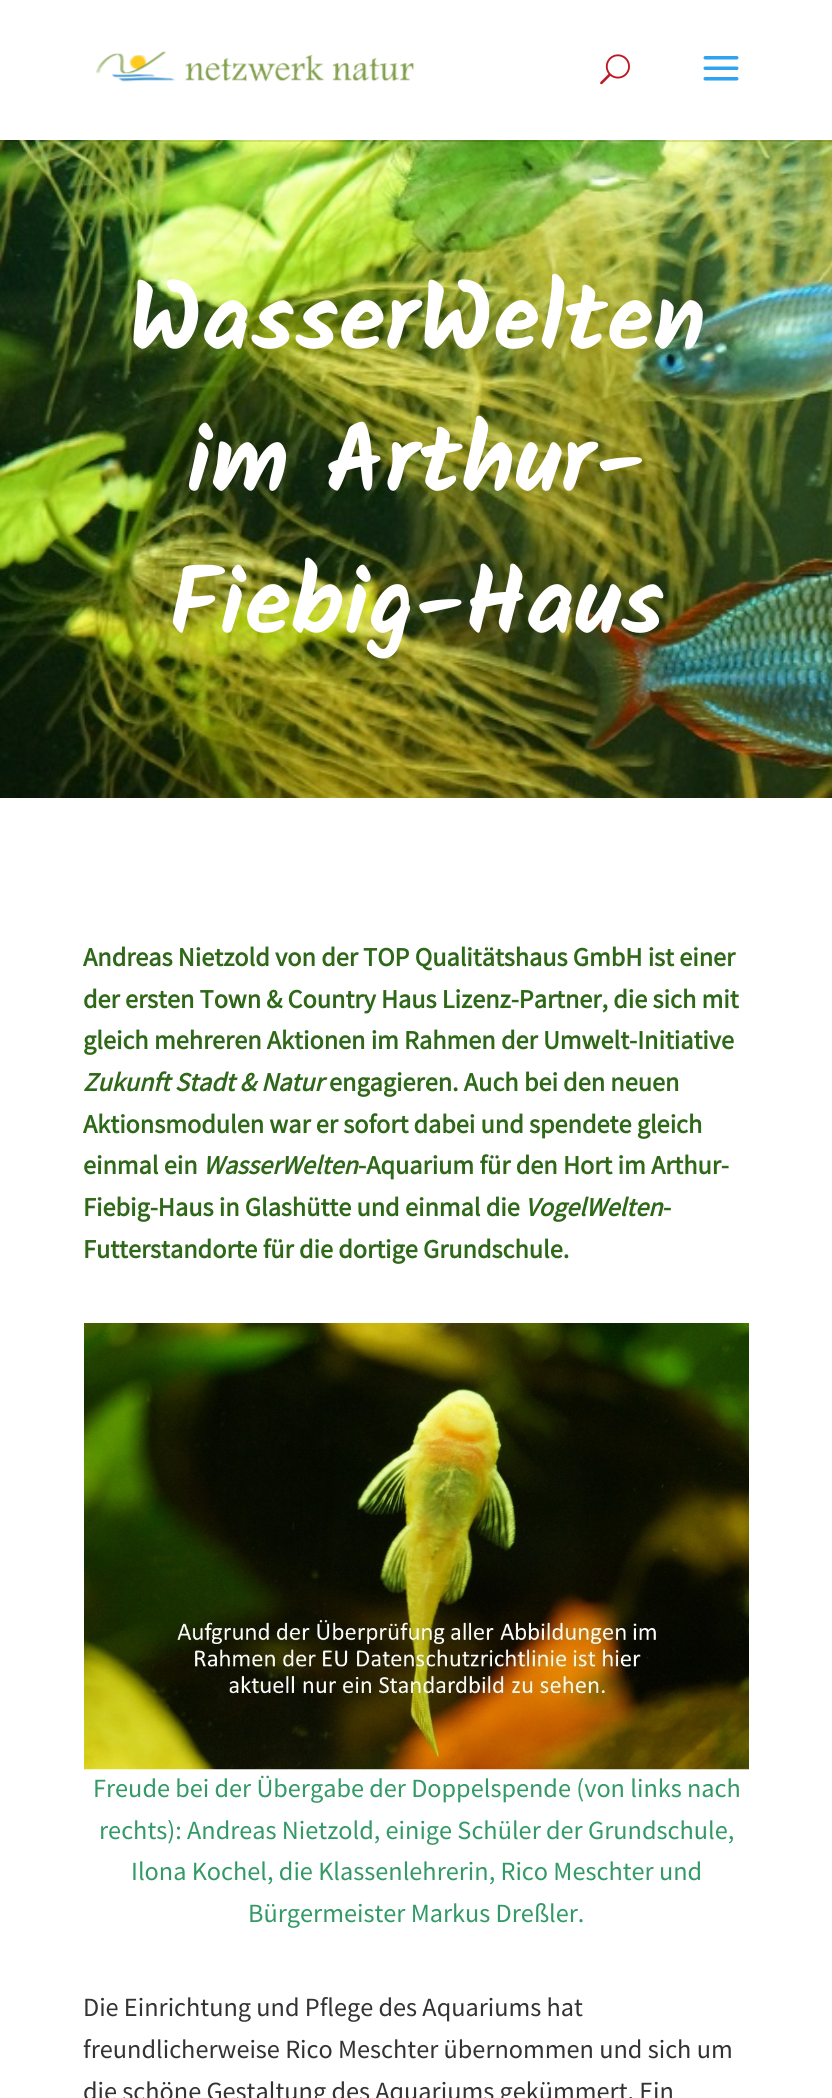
import math
import cairo

surface = cairo.ImageSurface(cairo.Format.RGB24, 832, 2098)
ctx = cairo.Context(surface)
options = cairo.FontOptions()
options.set_hint_metrics(cairo.HintMetrics.OFF)
options.set_hint_style(cairo.HintStyle.NONE)
ctx.set_font_options(options)
ctx.set_miter_limit(4)


def ink(r, g, b):
    ctx.set_source_rgb(r / 255, g / 255, b / 255)


def write(x, y, s, family, size, color, bold=False, italic=False):
    ctx.select_font_face(family, cairo.FontSlant.ITALIC if italic else cairo.FontSlant.NORMAL, cairo.FontWeight.BOLD if bold else cairo.FontWeight.NORMAL)
    ctx.set_font_size(size)
    ink(*color)
    ctx.move_to(x, y)
    ctx.show_text(s)


def paste(path, x, y, w, h):
    ctx.save()
    ctx.set_source_surface(cairo.ImageSurface.create_from_png(path), x, y)
    ctx.rectangle(x, y, w, h)
    ctx.fill()
    ctx.restore()


s1 = dict(family="Kalam", size=94.5, color=(255, 255, 255), bold=True)
s2 = dict(family="Mada", size=26.25, color=(46, 104, 24), bold=True)
s3 = dict(family="Mada", size=26.25, color=(46, 104, 24), bold=True, italic=True)
s4 = dict(family="Mada", size=26.25, color=(51, 153, 102))
s5 = dict(family="Mada", size=26.25, color=(51, 51, 51))

ink(255, 255, 255)
ctx.paint()
paste("pic4.png", 0, 140, 832, 658)
ctx.set_source_rgba(0, 0, 0, 0.1)
ctx.rectangle(0, 140, 832, 2)
ctx.fill()
paste("pic1.png", 96, 51, 319, 31)
paste("pic2.png", 600, 54, 30, 31)
paste("pic3.png", 703, 56, 36, 25)
write(128, 350, "WasserWelten", **s1)
write(187, 492, "im Arthur-", **s1)
write(169, 634, "Fiebig-Haus", **s1)
write(83, 966, "Andreas Nietzold von der TOP Qualitätshaus GmbH ist einer", **s2)
write(83, 1008, "der ersten Town & Country Haus Lizenz-Partner, die sich mit", **s2)
write(83, 1049, "gleich mehreren Aktionen im Rahmen der Umwelt-Initiative", **s2)
write(83, 1091, "Zukunft Stadt & Natur", **s3)
write(329, 1091, "engagieren. Auch bei den neuen", **s2)
write(83, 1133, "Aktionsmodulen war er sofort dabei und spendete gleich", **s2)
write(83, 1174, "einmal ein", **s2)
write(203, 1174, "WasserWelten", **s3)
write(358, 1174, "-Aquarium für den Hort im Arthur-", **s2)
write(83, 1216, "Fiebig-Haus in Glashütte und einmal die", **s2)
write(525, 1216, "VogelWelten", **s3)
write(663, 1216, "-", **s2)
write(83, 1258, "Futterstandorte für die dortige Grundschule.", **s2)
paste("pic5.png", 84, 1323, 665, 447)
write(93, 1797, "Freude bei der Übergabe der Doppelspende (von links nach", **s4)
write(99, 1839, "rechts): Andreas Nietzold, einige Schüler der Grundschule,", **s4)
write(131, 1880, "Ilona Kochel, die Klassenlehrerin, Rico Meschter und", **s4)
write(248, 1922, "Bürgermeister Markus Dreßler.", **s4)
write(83, 2016, "Die Einrichtung und Pflege des Aquariums hat", **s5)
write(83, 2058, "freundlicherweise Rico Meschter übernommen und sich um", **s5)
write(83, 2100, "die schöne Gestaltung des Aquariums gekümmert. Ein", **s5)
surface.write_to_png("screenshot.png")
